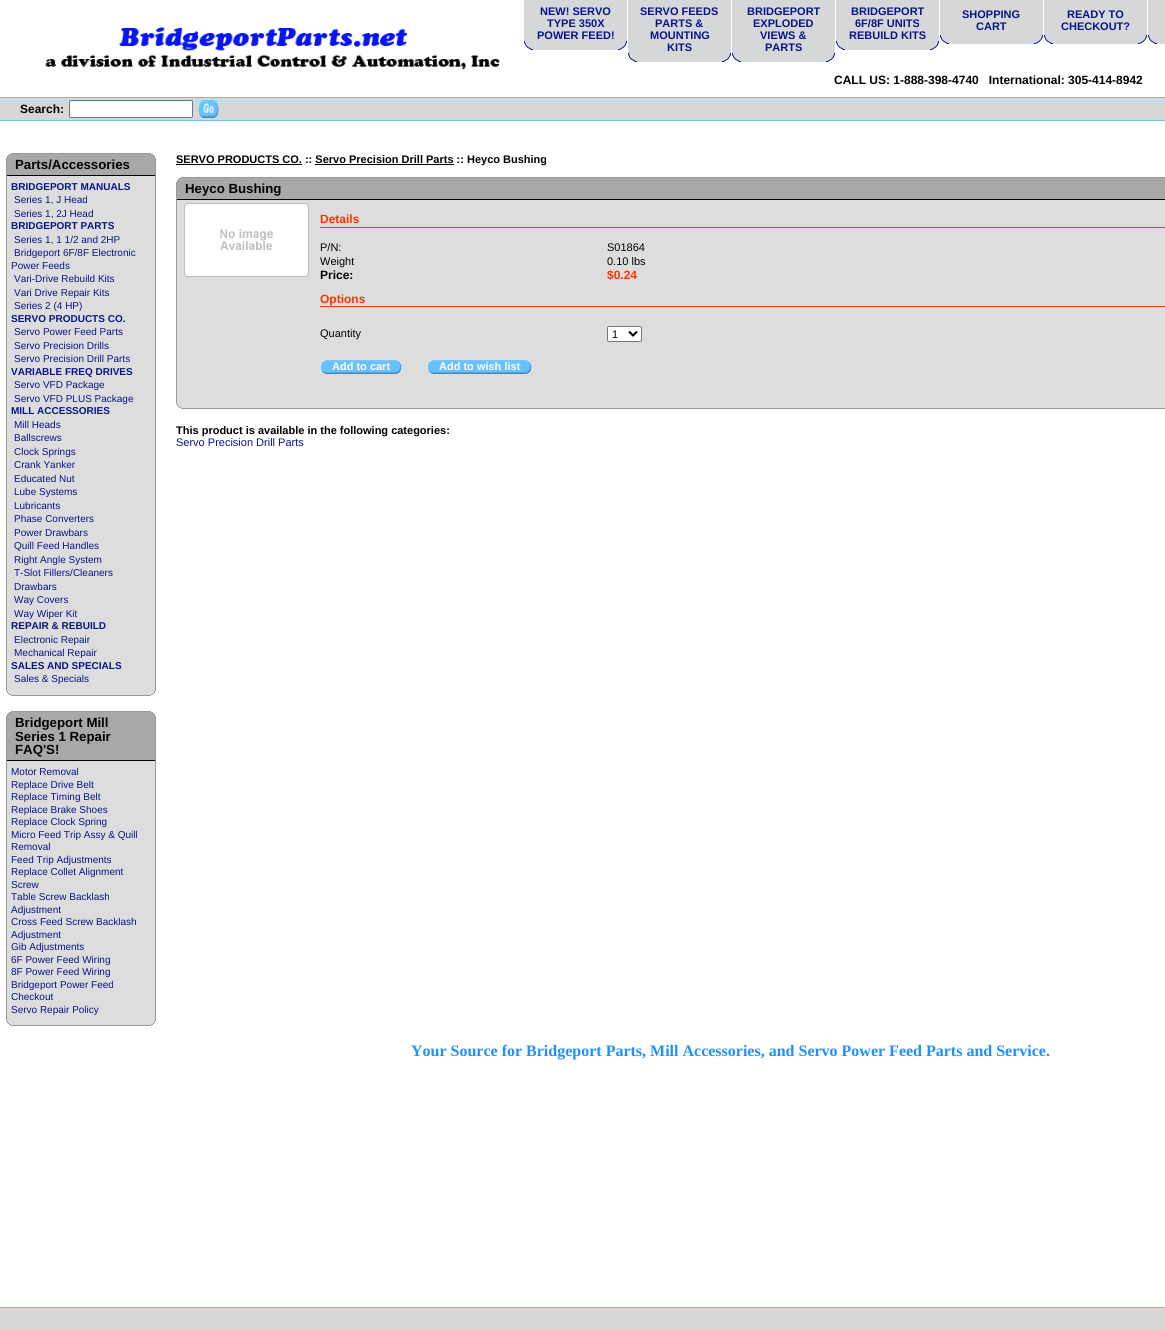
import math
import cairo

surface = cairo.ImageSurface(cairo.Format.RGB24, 1165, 1330)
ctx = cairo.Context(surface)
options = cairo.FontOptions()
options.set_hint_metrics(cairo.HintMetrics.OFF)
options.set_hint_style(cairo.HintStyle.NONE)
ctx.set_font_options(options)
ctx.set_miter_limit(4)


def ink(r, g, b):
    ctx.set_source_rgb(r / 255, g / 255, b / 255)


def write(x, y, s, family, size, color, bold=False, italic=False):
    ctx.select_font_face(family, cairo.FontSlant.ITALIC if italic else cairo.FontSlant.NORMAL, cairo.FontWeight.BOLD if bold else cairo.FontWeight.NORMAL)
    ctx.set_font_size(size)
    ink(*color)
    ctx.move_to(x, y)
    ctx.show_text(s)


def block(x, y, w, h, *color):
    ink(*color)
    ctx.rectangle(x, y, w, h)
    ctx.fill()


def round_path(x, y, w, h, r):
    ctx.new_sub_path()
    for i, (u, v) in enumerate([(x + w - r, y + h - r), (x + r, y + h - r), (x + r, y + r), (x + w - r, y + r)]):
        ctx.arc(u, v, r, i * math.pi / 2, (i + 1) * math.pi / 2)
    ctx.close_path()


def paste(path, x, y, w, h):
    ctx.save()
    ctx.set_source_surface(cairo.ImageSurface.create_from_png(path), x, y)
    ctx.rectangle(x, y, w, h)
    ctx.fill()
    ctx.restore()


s1 = dict(family="Liberation Sans", size=11, color=(8, 21, 137), bold=True)
s2 = dict(family="Liberation Sans", size=12, color=(0, 0, 0), bold=True)
s3 = dict(family="Liberation Sans", size=13.25, color=(0, 0, 0), bold=True)
s4 = dict(family="Liberation Sans", size=10, color=(8, 21, 137), bold=True)
s5 = dict(family="Liberation Sans", size=10, color=(8, 21, 137))
s6 = dict(family="Liberation Sans", size=11, color=(0, 0, 0), bold=True)
s7 = dict(family="Liberation Sans", size=12, color=(255, 51, 0), bold=True)
s8 = dict(family="Liberation Sans", size=11, color=(0, 0, 0))
s9 = dict(family="Liberation Sans", size=11, color=(255, 255, 255), bold=True)
s10 = dict(family="Liberation Sans", size=11, color=(8, 21, 137))
s11 = dict(family="Liberation Serif", size=16, color=(30, 144, 255), bold=True)

ink(255, 255, 255)
ctx.paint()
paste("pic1.png", 45, 27, 455, 43)
block(524, 0, 103, 5, 214, 215, 217)
block(524, 5, 103, 36, 214, 215, 217)
write(540, 15, "NEW! SERVO", **s1)
write(547, 27, "TYPE 350X", **s1)
write(537, 39, "POWER FEED!", **s1)
paste("pic2.png", 524, 41, 9, 9)
block(533, 41, 85, 9, 214, 215, 217)
paste("pic3.png", 618, 41, 9, 9)
block(628, 0, 103, 5, 214, 215, 217)
block(628, 5, 103, 48, 214, 215, 217)
write(640, 15, "SERVO FEEDS", **s1)
write(655, 27, "PARTS &", **s1)
write(650, 39, "MOUNTING", **s1)
write(667, 51, "KITS", **s1)
paste("pic2.png", 628, 53, 9, 9)
block(637, 53, 85, 9, 214, 215, 217)
paste("pic3.png", 722, 53, 9, 9)
block(732, 0, 103, 5, 214, 215, 217)
block(732, 5, 103, 48, 214, 215, 217)
write(747, 15, "BRIDGEPORT", **s1)
write(753, 27, "EXPLODED", **s1)
write(760, 39, "VIEWS &", **s1)
write(765, 51, "PARTS", **s1)
paste("pic2.png", 732, 53, 9, 9)
block(741, 53, 85, 9, 214, 215, 217)
paste("pic3.png", 826, 53, 9, 9)
block(836, 0, 103, 5, 214, 215, 217)
block(836, 5, 103, 36, 214, 215, 217)
write(851, 15, "BRIDGEPORT", **s1)
write(855, 27, "6F/8F UNITS", **s1)
write(849, 39, "REBUILD KITS", **s1)
paste("pic2.png", 836, 41, 9, 9)
block(845, 41, 85, 9, 214, 215, 217)
paste("pic3.png", 930, 41, 9, 9)
block(940, 0, 103, 5, 214, 215, 217)
block(940, 5, 103, 30, 214, 215, 217)
write(962, 18, "SHOPPING", **s1)
write(976, 30, "CART", **s1)
paste("pic2.png", 940, 35, 9, 9)
block(949, 35, 85, 9, 214, 215, 217)
paste("pic3.png", 1034, 35, 9, 9)
block(1044, 0, 103, 5, 214, 215, 217)
block(1044, 5, 103, 30, 214, 215, 217)
write(1067, 18, "READY TO", **s1)
write(1061, 30, "CHECKOUT?", **s1)
paste("pic2.png", 1044, 35, 9, 9)
block(1053, 35, 85, 9, 214, 215, 217)
paste("pic3.png", 1138, 35, 9, 9)
block(1148, 0, 17, 5, 214, 215, 217)
block(1148, 5, 17, 30, 214, 215, 217)
paste("pic2.png", 1148, 35, 9, 9)
block(1157, 35, 8, 9, 214, 215, 217)
write(834, 84, "CALL US: 1-888-398-4740   International: 305-414-8942", **s2)
block(0, 97, 1165, 1, 104, 193, 255)
block(0, 98, 1165, 22, 214, 215, 217)
write(20, 113, "Search:", **s2)
ink(255, 255, 255)
round_path(69.5, 100.5, 123, 17, 1.5)
ctx.fill_preserve()
ink(118, 118, 118)
ctx.set_line_width(1)
ctx.stroke()
paste("pic4.png", 198, 100, 21, 18)
block(0, 120, 1165, 1, 104, 193, 255)
block(11, 153, 140, 1, 153, 153, 153)
block(9, 154, 144, 1, 168, 168, 168)
block(151, 154, 2, 1, 153, 153, 153)
block(9, 154, 2, 1, 153, 153, 153)
block(8, 155, 146, 1, 168, 168, 168)
block(153, 155, 1, 1, 153, 153, 153)
block(8, 155, 1, 1, 153, 153, 153)
block(7, 156, 148, 19, 168, 168, 168)
block(154, 156, 1, 2, 153, 153, 153)
block(7, 156, 1, 2, 153, 153, 153)
block(7, 176, 148, 517, 221, 221, 221)
block(155, 158, 1, 533, 153, 153, 153)
block(6, 158, 1, 533, 153, 153, 153)
block(7, 175, 148, 1, 0, 0, 0)
write(15, 169, "Parts/Accessories", **s3)
write(11, 190, "BRIDGEPORT MANUALS", **s4)
write(14, 203, "Series 1, J Head", **s5)
write(14, 217, "Series 1, 2J Head", **s5)
write(11, 229, "BRIDGEPORT PARTS", **s4)
write(14, 243, "Series 1, 1 1/2 and 2HP", **s5)
write(14, 256, "Bridgeport 6F/8F Electronic", **s5)
write(11, 269, "Power Feeds", **s5)
write(14, 282, "Vari-Drive Rebuild Kits", **s5)
write(14, 296, "Vari Drive Repair Kits", **s5)
write(14, 309, "Series 2 (4 HP)", **s5)
write(11, 322, "SERVO PRODUCTS CO.", **s4)
write(14, 335, "Servo Power Feed Parts", **s5)
write(14, 349, "Servo Precision Drills", **s5)
write(14, 362, "Servo Precision Drill Parts", **s5)
write(11, 375, "VARIABLE FREQ DRIVES", **s4)
write(14, 388, "Servo VFD Package", **s5)
write(14, 402, "Servo VFD PLUS Package", **s5)
write(11, 414, "MILL ACCESSORIES", **s4)
write(14, 428, "Mill Heads", **s5)
write(14, 441, "Ballscrews", **s5)
write(14, 455, "Clock Springs", **s5)
write(14, 468, "Crank Yanker", **s5)
write(14, 482, "Educated Nut", **s5)
write(14, 495, "Lube Systems", **s5)
write(14, 509, "Lubricants", **s5)
write(14, 522, "Phase Converters", **s5)
write(14, 536, "Power Drawbars", **s5)
write(14, 549, "Quill Feed Handles", **s5)
write(14, 563, "Right Angle System", **s5)
write(14, 576, "T-Slot Fillers/Cleaners", **s5)
write(14, 590, "Drawbars", **s5)
write(14, 603, "Way Covers", **s5)
write(14, 617, "Way Wiper Kit", **s5)
write(11, 629, "REPAIR & REBUILD", **s4)
write(14, 643, "Electronic Repair", **s5)
write(14, 656, "Mechanical Repair", **s5)
write(11, 669, "SALES AND SPECIALS", **s4)
write(14, 682, "Sales & Specials", **s5)
block(154, 691, 1, 2, 153, 153, 153)
block(7, 691, 1, 2, 153, 153, 153)
block(8, 693, 146, 1, 221, 221, 221)
block(153, 693, 1, 1, 153, 153, 153)
block(8, 693, 1, 1, 153, 153, 153)
block(9, 694, 144, 1, 221, 221, 221)
block(151, 694, 2, 1, 153, 153, 153)
block(9, 694, 2, 1, 153, 153, 153)
block(11, 695, 140, 1, 153, 153, 153)
block(11, 711, 140, 1, 153, 153, 153)
block(9, 712, 144, 1, 168, 168, 168)
block(151, 712, 2, 1, 153, 153, 153)
block(9, 712, 2, 1, 153, 153, 153)
block(8, 713, 146, 1, 168, 168, 168)
block(153, 713, 1, 1, 153, 153, 153)
block(8, 713, 1, 1, 153, 153, 153)
block(7, 714, 148, 46, 168, 168, 168)
block(154, 714, 1, 2, 153, 153, 153)
block(7, 714, 1, 2, 153, 153, 153)
block(7, 761, 148, 262, 221, 221, 221)
block(155, 716, 1, 305, 153, 153, 153)
block(6, 716, 1, 305, 153, 153, 153)
block(7, 760, 148, 1, 0, 0, 0)
write(15, 727, "Bridgeport Mill", **s3)
write(15, 741, "Series 1 Repair", **s3)
write(15, 754, "FAQ'S!", **s3)
write(11, 775, "Motor Removal", **s5)
write(11, 788, "Replace Drive Belt", **s5)
write(11, 800, "Replace Timing Belt", **s5)
write(11, 813, "Replace Brake Shoes", **s5)
write(11, 825, "Replace Clock Spring", **s5)
write(11, 838, "Micro Feed Trip Assy & Quill", **s5)
write(11, 850, "Removal", **s5)
write(11, 863, "Feed Trip Adjustments", **s5)
write(11, 875, "Replace Collet Alignment", **s5)
write(11, 888, "Screw", **s5)
write(11, 900, "Table Screw Backlash", **s5)
write(11, 913, "Adjustment", **s5)
write(11, 925, "Cross Feed Screw Backlash", **s5)
write(11, 938, "Adjustment", **s5)
write(11, 950, "Gib Adjustments", **s5)
write(11, 963, "6F Power Feed Wiring", **s5)
write(11, 975, "8F Power Feed Wiring", **s5)
write(11, 988, "Bridgeport Power Feed", **s5)
write(11, 1000, "Checkout", **s5)
write(11, 1013, "Servo Repair Policy", **s5)
block(154, 1021, 1, 2, 153, 153, 153)
block(7, 1021, 1, 2, 153, 153, 153)
block(8, 1023, 146, 1, 221, 221, 221)
block(153, 1023, 1, 1, 153, 153, 153)
block(8, 1023, 1, 1, 153, 153, 153)
block(9, 1024, 144, 1, 221, 221, 221)
block(151, 1024, 2, 1, 153, 153, 153)
block(9, 1024, 2, 1, 153, 153, 153)
block(11, 1025, 140, 1, 153, 153, 153)
block(176, 164, 126, 1, 0, 0, 0)
write(176, 163, "SERVO PRODUCTS CO. :: Servo Precision Drill Parts :: Heyco Bushing", **s6)
block(315, 164, 139, 1, 0, 0, 0)
block(181, 177, 984, 1, 153, 153, 153)
block(179, 178, 986, 1, 168, 168, 168)
block(179, 178, 2, 1, 153, 153, 153)
block(178, 179, 987, 1, 168, 168, 168)
block(178, 179, 1, 1, 153, 153, 153)
block(177, 180, 988, 19, 168, 168, 168)
block(177, 180, 1, 2, 153, 153, 153)
block(177, 200, 988, 206, 221, 221, 221)
block(176, 182, 1, 222, 153, 153, 153)
block(177, 199, 988, 1, 0, 0, 0)
write(185, 193, "Heyco Bushing", **s3)
paste("pic5.png", 184, 203, 125, 74)
write(320, 223, "Details", **s7)
block(320, 227, 845, 1, 255, 51, 0)
write(320, 251, "P/N:", **s8)
write(607, 251, "S01864", **s8)
write(320, 265, "Weight", **s8)
write(607, 265, "0.10 lbs", **s8)
write(320, 279, "Price:", **s2)
write(607, 279, "$0.24", **s7)
write(320, 303, "Options", **s7)
block(320, 306, 845, 1, 255, 51, 0)
write(320, 337, "Quantity", **s8)
ink(255, 255, 255)
round_path(607.5, 326.5, 34, 15, 1.5)
ctx.fill_preserve()
ink(118, 118, 118)
ctx.stroke()
ctx.new_path()
ctx.move_to(629, 331.5)
ctx.line_to(633, 335.5)
ctx.line_to(637, 331.5)
ink(0, 0, 0)
ctx.set_line_width(2)
ctx.stroke()
write(612, 338, "1", **s8)
paste("pic6.png", 320, 360, 7, 14)
paste("pic7.png", 327, 360, 68, 14)
write(332, 370, "Add to cart", **s9)
paste("pic8.png", 395, 360, 7, 14)
paste("pic6.png", 427, 360, 7, 14)
paste("pic9.png", 434, 360, 91, 14)
write(439, 370, "Add to wish list", **s9)
paste("pic8.png", 525, 360, 7, 14)
block(177, 404, 1, 2, 153, 153, 153)
block(178, 406, 987, 1, 221, 221, 221)
block(178, 406, 1, 1, 153, 153, 153)
block(179, 407, 986, 1, 221, 221, 221)
block(179, 407, 2, 1, 153, 153, 153)
block(181, 408, 984, 1, 153, 153, 153)
write(176, 434, "This product is available in the following categories:", **s6)
write(176, 446, "Servo Precision Drill Parts", **s10)
write(411, 1056, "Your Source for Bridgeport Parts, Mill Accessories, and Servo Power Feed Parts and Service.", **s11)
block(0, 1307, 1165, 1, 104, 193, 255)
block(0, 1308, 1165, 22, 214, 215, 217)
surface.write_to_png("screenshot.png")
